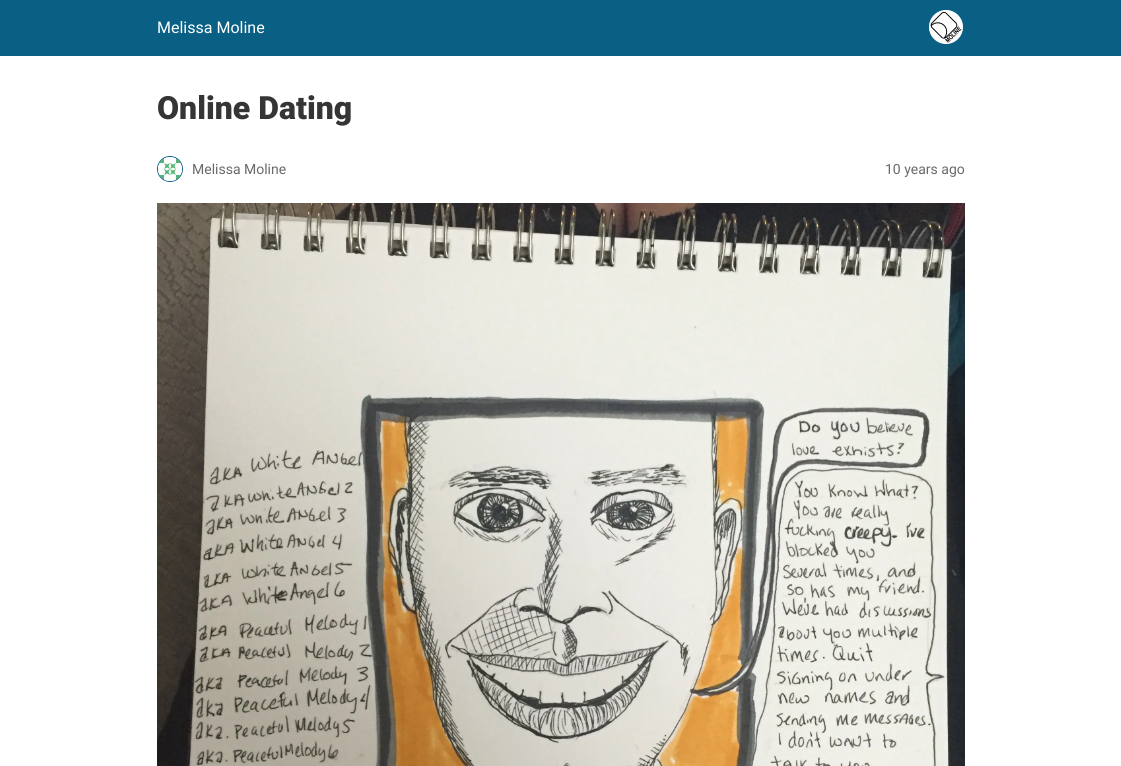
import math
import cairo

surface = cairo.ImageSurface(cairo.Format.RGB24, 1121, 766)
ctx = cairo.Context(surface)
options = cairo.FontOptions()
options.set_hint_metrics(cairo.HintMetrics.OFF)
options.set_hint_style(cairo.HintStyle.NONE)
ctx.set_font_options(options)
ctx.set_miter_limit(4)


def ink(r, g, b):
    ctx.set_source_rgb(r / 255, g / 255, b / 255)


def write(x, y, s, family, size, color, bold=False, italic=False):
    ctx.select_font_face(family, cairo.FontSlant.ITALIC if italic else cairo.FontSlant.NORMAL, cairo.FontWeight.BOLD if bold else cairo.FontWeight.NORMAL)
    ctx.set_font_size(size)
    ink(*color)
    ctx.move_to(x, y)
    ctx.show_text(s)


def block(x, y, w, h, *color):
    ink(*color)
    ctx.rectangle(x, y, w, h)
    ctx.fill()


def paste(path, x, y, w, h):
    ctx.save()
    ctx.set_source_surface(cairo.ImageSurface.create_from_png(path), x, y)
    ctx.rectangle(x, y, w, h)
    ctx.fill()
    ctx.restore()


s1 = dict(family="Roboto", size=16, color=(255, 255, 255))
s2 = dict(family="Roboto Black", size=32, color=(53, 53, 53))
s3 = dict(family="Roboto", size=14, color=(105, 105, 105))

ink(255, 255, 255)
ctx.paint()
block(0, 0, 1121, 56, 10, 95, 133)
write(157, 33, "Melissa Moline", **s1)
ctx.new_path()
ctx.arc(946, 27, 16.5, 0, 2 * math.pi)
ctx.fill_preserve()
ctx.set_line_width(1)
ctx.stroke()
paste("pic1.png", 930, 11, 32, 32)
write(157, 119, "Online Dating", **s2)
ctx.new_path()
ctx.arc(170, 169, 12.5, 0, 2 * math.pi)
ink(10, 95, 133)
ctx.stroke()
paste("pic2.png", 158, 157, 24, 24)
write(192, 174, "Melissa Moline", **s3)
write(885, 174, "10 years ago", **s3)
paste("pic3.png", 157, 203, 808, 563)
surface.write_to_png("screenshot.png")
